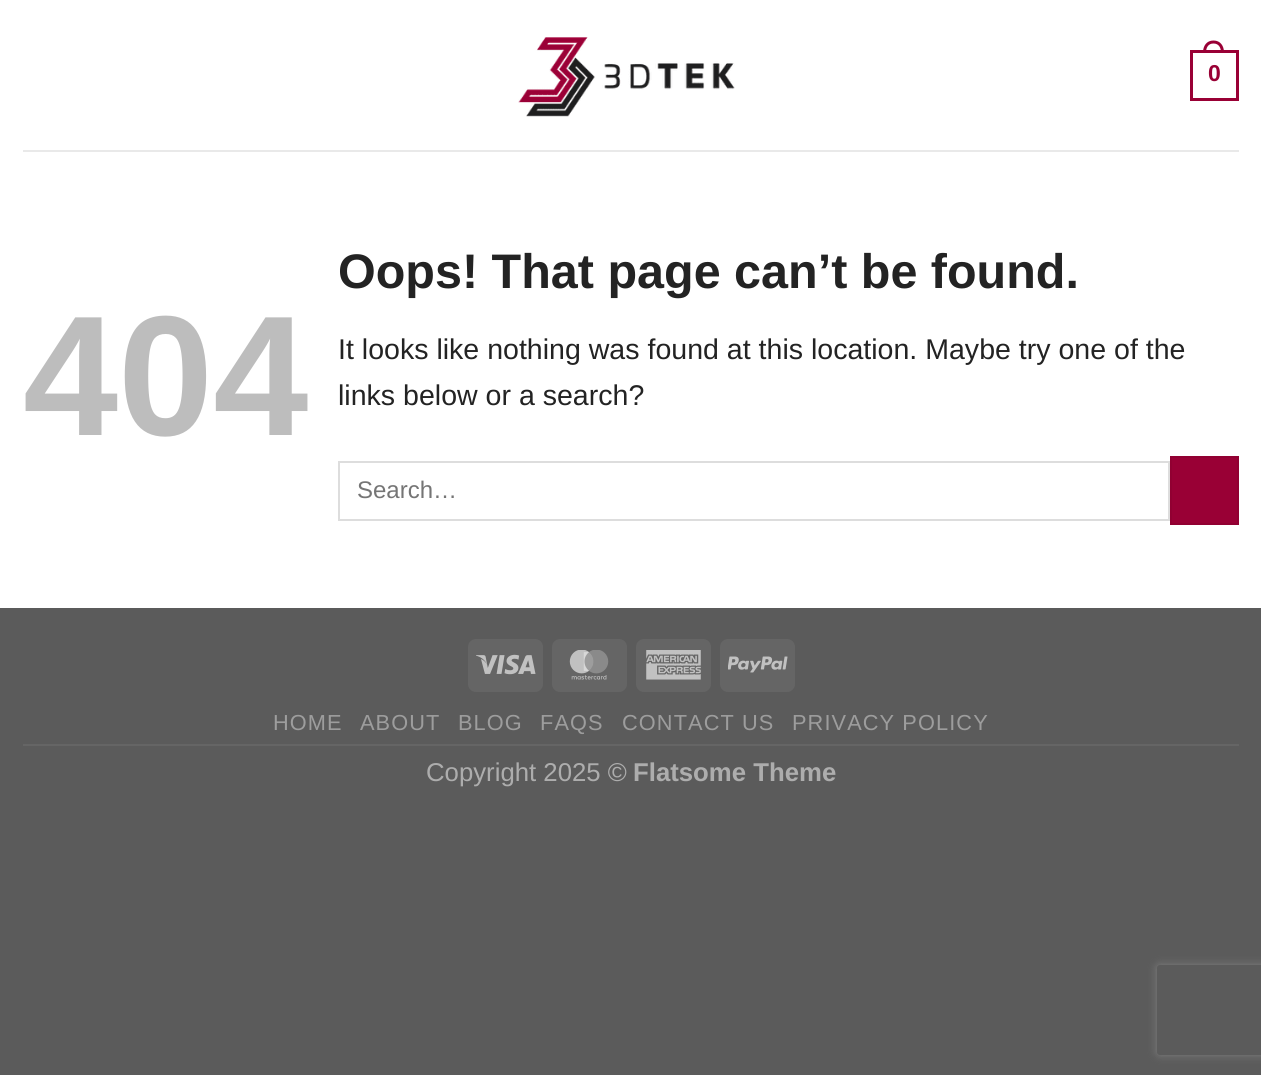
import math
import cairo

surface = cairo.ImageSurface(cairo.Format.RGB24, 1261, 1075)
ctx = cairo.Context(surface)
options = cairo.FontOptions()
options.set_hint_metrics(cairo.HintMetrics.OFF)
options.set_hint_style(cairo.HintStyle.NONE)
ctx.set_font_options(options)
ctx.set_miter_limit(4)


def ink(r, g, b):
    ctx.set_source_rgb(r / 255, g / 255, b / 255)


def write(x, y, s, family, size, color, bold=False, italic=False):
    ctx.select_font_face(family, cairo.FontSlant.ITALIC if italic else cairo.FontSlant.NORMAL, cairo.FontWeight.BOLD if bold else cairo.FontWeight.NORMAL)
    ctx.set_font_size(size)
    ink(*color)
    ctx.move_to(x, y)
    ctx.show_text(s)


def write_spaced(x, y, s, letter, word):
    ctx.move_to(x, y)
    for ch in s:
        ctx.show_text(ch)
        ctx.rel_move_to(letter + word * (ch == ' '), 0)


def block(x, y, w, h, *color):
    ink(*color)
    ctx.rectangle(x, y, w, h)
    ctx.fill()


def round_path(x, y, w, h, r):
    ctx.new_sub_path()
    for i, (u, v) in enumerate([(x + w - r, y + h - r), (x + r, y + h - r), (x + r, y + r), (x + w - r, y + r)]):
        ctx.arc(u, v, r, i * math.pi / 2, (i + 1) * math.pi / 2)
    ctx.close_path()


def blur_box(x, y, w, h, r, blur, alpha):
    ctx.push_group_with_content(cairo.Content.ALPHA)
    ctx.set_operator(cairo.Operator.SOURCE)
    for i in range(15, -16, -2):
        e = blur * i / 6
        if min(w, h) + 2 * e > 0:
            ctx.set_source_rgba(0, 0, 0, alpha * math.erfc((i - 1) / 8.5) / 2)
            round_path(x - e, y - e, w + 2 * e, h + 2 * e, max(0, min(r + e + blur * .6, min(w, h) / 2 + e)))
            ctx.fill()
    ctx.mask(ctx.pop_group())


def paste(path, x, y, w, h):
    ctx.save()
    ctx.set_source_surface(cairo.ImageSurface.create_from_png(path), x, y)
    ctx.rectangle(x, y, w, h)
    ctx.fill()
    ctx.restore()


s1 = dict(family="Liberation Sans", size=23, color=(153, 0, 53), bold=True)
s2 = dict(family="Liberation Sans", size=171, color=(189, 189, 189), bold=True)
s3 = dict(family="Liberation Sans", size=48.5, color=(35, 35, 35), bold=True)
s4 = dict(family="Liberation Sans", size=28.55, color=(35, 35, 35))
s5 = dict(family="Liberation Sans", size=24, color=(117, 117, 117))
s6 = dict(family="Liberation Sans", size=25.75, color=(173, 173, 173))
s7 = dict(family="Liberation Sans", size=25.75, color=(173, 173, 173), bold=True)

ink(91, 91, 91)
ctx.paint()
block(0, 0, 1261, 608, 255, 255, 255)
paste("pic1.png", 518, 37, 217, 80)
ctx.rectangle(1191.5, 51.5, 46, 48)
ink(153, 0, 53)
ctx.set_line_width(3)
ctx.stroke()
ctx.set_fill_rule(cairo.FillRule.EVEN_ODD)
ctx.new_path()
ctx.move_to(1213.5, 40.5)
ctx.curve_to(1220.5, 40.5, 1224, 46, 1224, 52.5)
ctx.line_to(1203, 52.5)
ctx.curve_to(1203, 46, 1206.5, 40.5, 1213.5, 40.5)
ctx.close_path()
ctx.move_to(1213.5, 43.5)
ctx.curve_to(1219, 43.5, 1221, 48, 1221, 52.5)
ctx.line_to(1206, 52.5)
ctx.curve_to(1206, 48, 1208, 43.5, 1213.5, 43.5)
ctx.close_path()
ctx.fill()
write(1208, 81, "0", **s1)
block(23, 150, 1216, 2, 233, 233, 233)
write(23, 435, "404", **s2)
write(338, 288, "Oops! That page can’t be found.", **s3)
write(338, 359, "It looks like nothing was found at this location. Maybe try one of the", **s4)
write(338, 405, "links below or a search?", **s4)
ctx.rectangle(339, 462, 830, 58)
ink(221, 221, 221)
ctx.set_line_width(2)
ctx.stroke()
write(357, 498, "Search…", **s5)
ink(153, 0, 53)
ctx.rectangle(1171, 457, 67, 67)
ctx.fill_preserve()
ink(145, 0, 50)
ctx.stroke()
ink(101, 101, 101)
round_path(468, 639, 75, 53, 8)
ctx.fill()
paste("pic2.png", 476, 654, 60, 21)
round_path(552, 639, 75, 53, 8)
ctx.fill()
paste("pic3.png", 569, 650, 40, 30)
round_path(636, 639, 75, 53, 8)
ctx.fill()
paste("pic4.png", 646, 650, 55, 30)
round_path(720, 639, 75, 53, 8)
ctx.fill()
paste("pic5.png", 728, 656, 60, 17)
block(23, 744, 1216, 2, 101, 101, 101)
ctx.set_font_size(21.75)
ink(157, 157, 157)
write_spaced(273, 730, "HOME", 1.1, 0)
write_spaced(360, 730, "ABOUT", 1.1, 0)
write_spaced(458, 730, "BLOG", 1.1, 0)
write_spaced(540, 730, "FAQS", 1.1, 0)
write_spaced(622, 730, "CONTACT US", 1.1, 0)
write_spaced(792, 730, "PRIVACY POLICY", 1.1, 0)
write(426, 781, "Copyright 2025 ©", **s6)
write(633, 781, "Flatsome Theme", **s7)
ctx.save()
ctx.new_path()
ctx.move_to(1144, 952)
ctx.line_to(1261, 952)
ctx.line_to(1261, 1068)
ctx.line_to(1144, 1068)
ctx.close_path()
ctx.move_to(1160, 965)
ctx.line_to(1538, 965)
ctx.curve_to(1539.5, 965, 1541, 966.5, 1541, 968)
ctx.line_to(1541, 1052)
ctx.curve_to(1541, 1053.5, 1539.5, 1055, 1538, 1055)
ctx.line_to(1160, 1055)
ctx.curve_to(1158.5, 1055, 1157, 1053.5, 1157, 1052)
ctx.line_to(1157, 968)
ctx.curve_to(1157, 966.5, 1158.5, 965, 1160, 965)
ctx.close_path()
ctx.clip()
ink(128, 128, 128)
blur_box(1157, 965, 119, 90, 3, 4, 1)
ctx.restore()
surface.write_to_png("screenshot.png")
